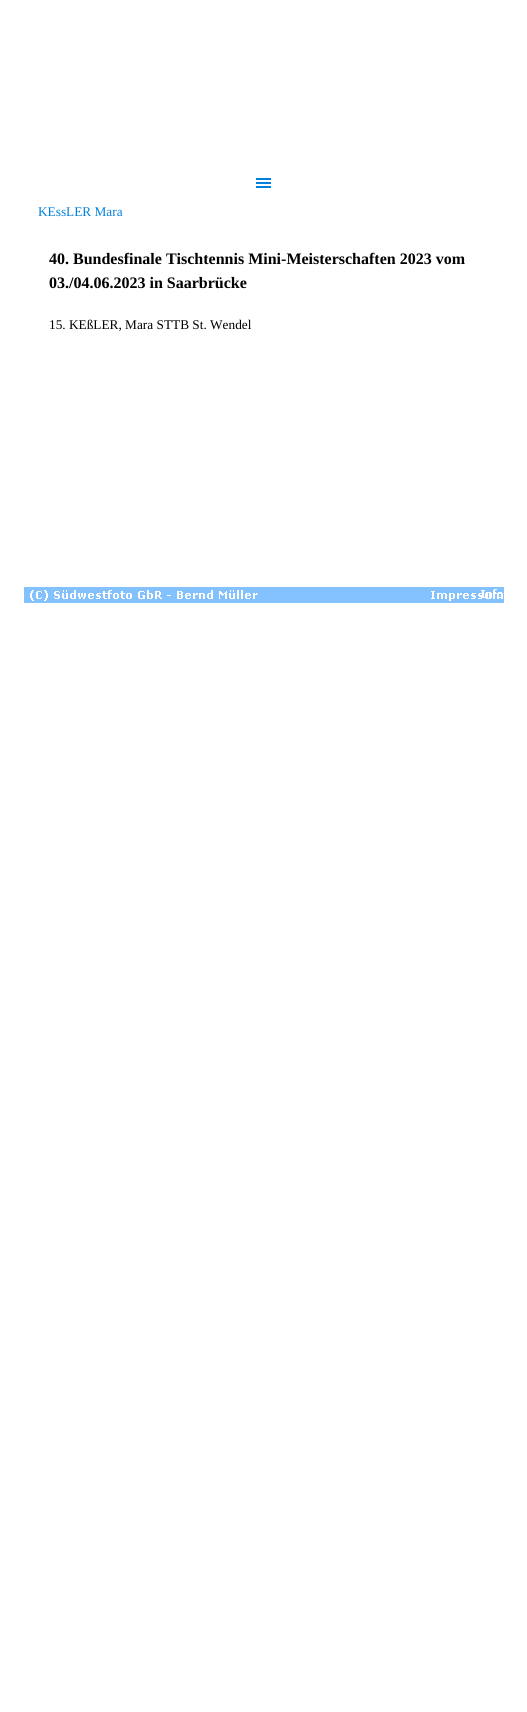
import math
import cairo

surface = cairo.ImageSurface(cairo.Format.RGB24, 527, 1712)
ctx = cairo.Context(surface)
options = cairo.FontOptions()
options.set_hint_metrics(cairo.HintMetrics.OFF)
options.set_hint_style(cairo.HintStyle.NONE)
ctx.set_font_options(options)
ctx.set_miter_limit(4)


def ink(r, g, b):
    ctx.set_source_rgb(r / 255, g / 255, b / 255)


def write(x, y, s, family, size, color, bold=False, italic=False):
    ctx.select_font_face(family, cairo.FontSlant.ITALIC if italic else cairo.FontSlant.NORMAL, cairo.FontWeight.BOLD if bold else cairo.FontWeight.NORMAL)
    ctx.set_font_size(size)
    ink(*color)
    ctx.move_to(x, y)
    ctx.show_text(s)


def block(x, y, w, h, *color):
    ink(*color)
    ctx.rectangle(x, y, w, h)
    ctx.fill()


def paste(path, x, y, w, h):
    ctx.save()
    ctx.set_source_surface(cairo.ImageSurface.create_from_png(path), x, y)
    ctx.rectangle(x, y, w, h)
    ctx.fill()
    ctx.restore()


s1 = dict(family="Liberation Serif", size=13.3, color=(1, 129, 222))
s2 = dict(family="Liberation Serif", size=16, color=(0, 0, 0), bold=True)
s3 = dict(family="Liberation Serif", size=13.3, color=(0, 0, 0))

ink(255, 255, 255)
ctx.paint()
block(256, 178, 15, 2, 1, 129, 222)
block(256, 182, 15, 2, 1, 129, 222)
block(256, 186, 15, 2, 1, 129, 222)
write(38, 216, "KEssLER Mara", **s1)
write(49, 264, "40. Bundesfinale Tischtennis Mini-Meisterschaften 2023 vom", **s2)
write(49, 288, "03./04.06.2023 in Saarbrücke", **s2)
write(49, 329, "15. KEßLER, Mara STTB St. Wendel", **s3)
block(24, 587, 480, 16, 132, 193, 255)
paste("pic1.png", 30, 590, 228, 11)
paste("pic3.png", 431, 591, 72, 10)
paste("pic2.png", 481, 589, 22, 9)
surface.write_to_png("screenshot.png")
